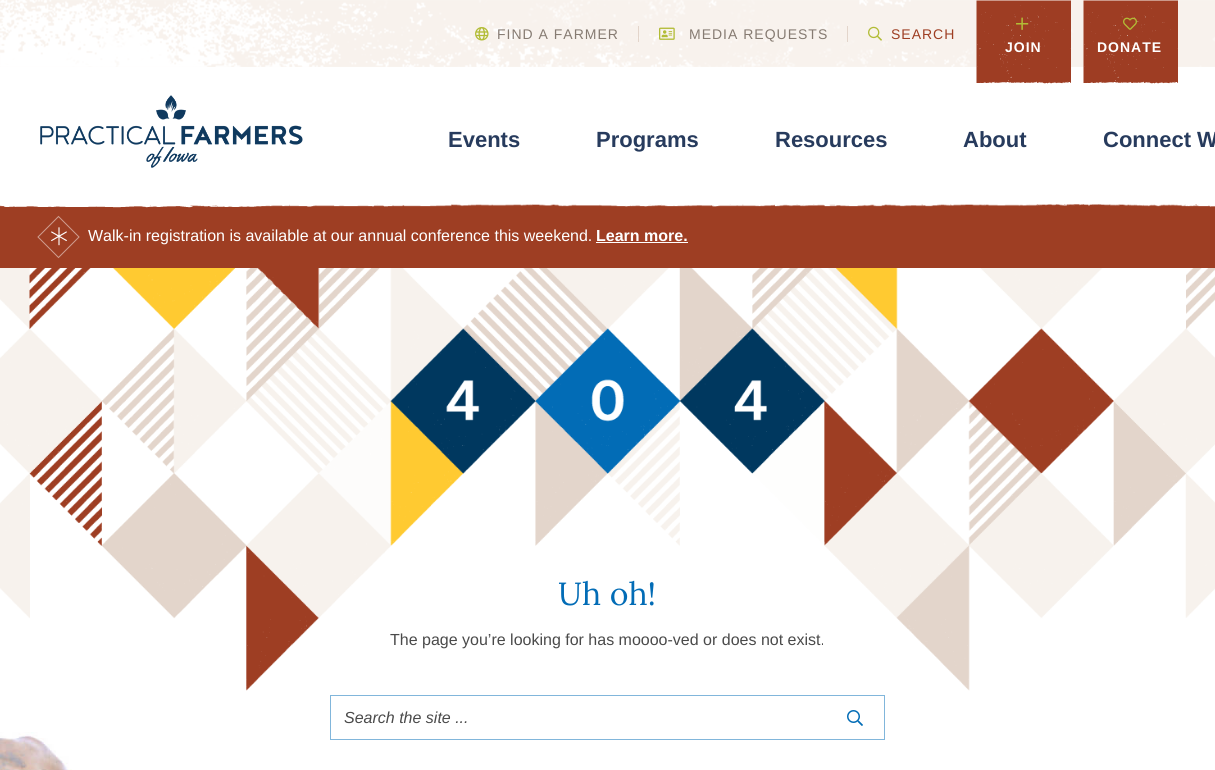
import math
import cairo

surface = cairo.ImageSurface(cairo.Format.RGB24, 1215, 770)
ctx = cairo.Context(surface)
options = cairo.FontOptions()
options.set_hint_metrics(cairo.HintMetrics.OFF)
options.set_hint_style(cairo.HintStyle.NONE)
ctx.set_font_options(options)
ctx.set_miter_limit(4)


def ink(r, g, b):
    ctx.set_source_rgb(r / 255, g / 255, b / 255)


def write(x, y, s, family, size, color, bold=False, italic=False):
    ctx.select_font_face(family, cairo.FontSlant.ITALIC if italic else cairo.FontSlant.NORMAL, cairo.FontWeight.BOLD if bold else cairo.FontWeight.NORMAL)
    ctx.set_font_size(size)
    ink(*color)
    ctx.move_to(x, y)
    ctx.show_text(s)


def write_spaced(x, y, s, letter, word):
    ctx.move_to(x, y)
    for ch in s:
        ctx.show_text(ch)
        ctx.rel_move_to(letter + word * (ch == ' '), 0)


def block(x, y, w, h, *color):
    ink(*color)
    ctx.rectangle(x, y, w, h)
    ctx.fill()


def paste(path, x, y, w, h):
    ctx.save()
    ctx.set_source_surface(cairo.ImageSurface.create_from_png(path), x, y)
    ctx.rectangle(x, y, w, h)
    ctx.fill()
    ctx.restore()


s1 = dict(family="Liberation Sans", size=22, color=(39, 59, 93), bold=True)
s2 = dict(family="Liberation Sans", size=16, color=(255, 255, 255))
s3 = dict(family="Liberation Sans", size=16, color=(255, 255, 255), bold=True)
s4 = dict(family="Lora", size=32, color=(2, 108, 182))
s5 = dict(family="Liberation Sans", size=16, color=(74, 74, 74))
s6 = dict(family="Liberation Sans", size=16, color=(74, 74, 74), italic=True)

ink(255, 255, 255)
ctx.paint()
paste("pic1.png", 0, 0, 1215, 67)
paste("pic2.png", 475, 27, 14, 14)
ctx.select_font_face("Liberation Sans")
ctx.set_font_size(14)
ink(134, 123, 114)
write_spaced(497, 39, "FIND A FARMER", 1, 0)
block(638, 26, 1, 16, 227, 213, 203)
paste("pic3.png", 659, 27, 16, 13)
ink(134, 123, 114)
write_spaced(689, 39, "MEDIA REQUESTS", 1, 0)
block(847, 26, 1, 16, 227, 213, 203)
paste("pic4.png", 868, 26, 14, 15)
ink(158, 62, 35)
write_spaced(891, 39, "SEARCH", 1, 0)
paste("pic5.png", 976, 0, 95, 84)
paste("pic6.png", 1016, 17, 13, 13)
ctx.select_font_face("Liberation Sans", cairo.FontSlant.NORMAL, cairo.FontWeight.BOLD)
ink(255, 255, 255)
write_spaced(1005, 52, "JOIN", 1, 0)
paste("pic7.png", 1083, 0, 95, 84)
paste("pic8.png", 1123, 17, 14, 13)
write_spaced(1097, 52, "DONATE", 1, 0)
paste("pic9.png", 40, 95, 263, 73)
write(448, 147, "Events", **s1)
write(596, 147, "Programs", **s1)
write(775, 147, "Resources", **s1)
write(963, 147, "About", **s1)
write(1103, 147, "Connect W", **s1)
block(0, 204, 1215, 64, 158, 62, 35)
paste("pic10.png", 0, 204, 1215, 4)
paste("pic11.png", 51, 227, 16, 19)
ctx.new_path()
ctx.move_to(58.5, 216.5)
ctx.line_to(79, 237)
ctx.line_to(58.5, 257.5)
ctx.line_to(38, 237)
ctx.close_path()
ink(207, 159, 145)
ctx.set_line_width(1)
ctx.stroke()
write(88, 241, "Walk-in registration is available at our annual conference this weekend.", **s2)
write(596, 241, "Learn more.", **s3)
block(596, 242, 92, 1, 255, 255, 255)
paste("pic12.png", 0, 268, 1215, 423)
write(558, 605, "Uh oh!", **s4)
write(390, 645, "The page you’re looking for has moooo-ved or does not exist.", **s5)
ctx.rectangle(330.5, 695.5, 554, 44)
ink(129, 182, 219)
ctx.stroke()
write(344, 723, "Search the site ...", **s6)
paste("pic13.png", 847, 710, 16, 16)
paste("pic14.png", 0, 732, 72, 38)
surface.write_to_png("screenshot.png")
